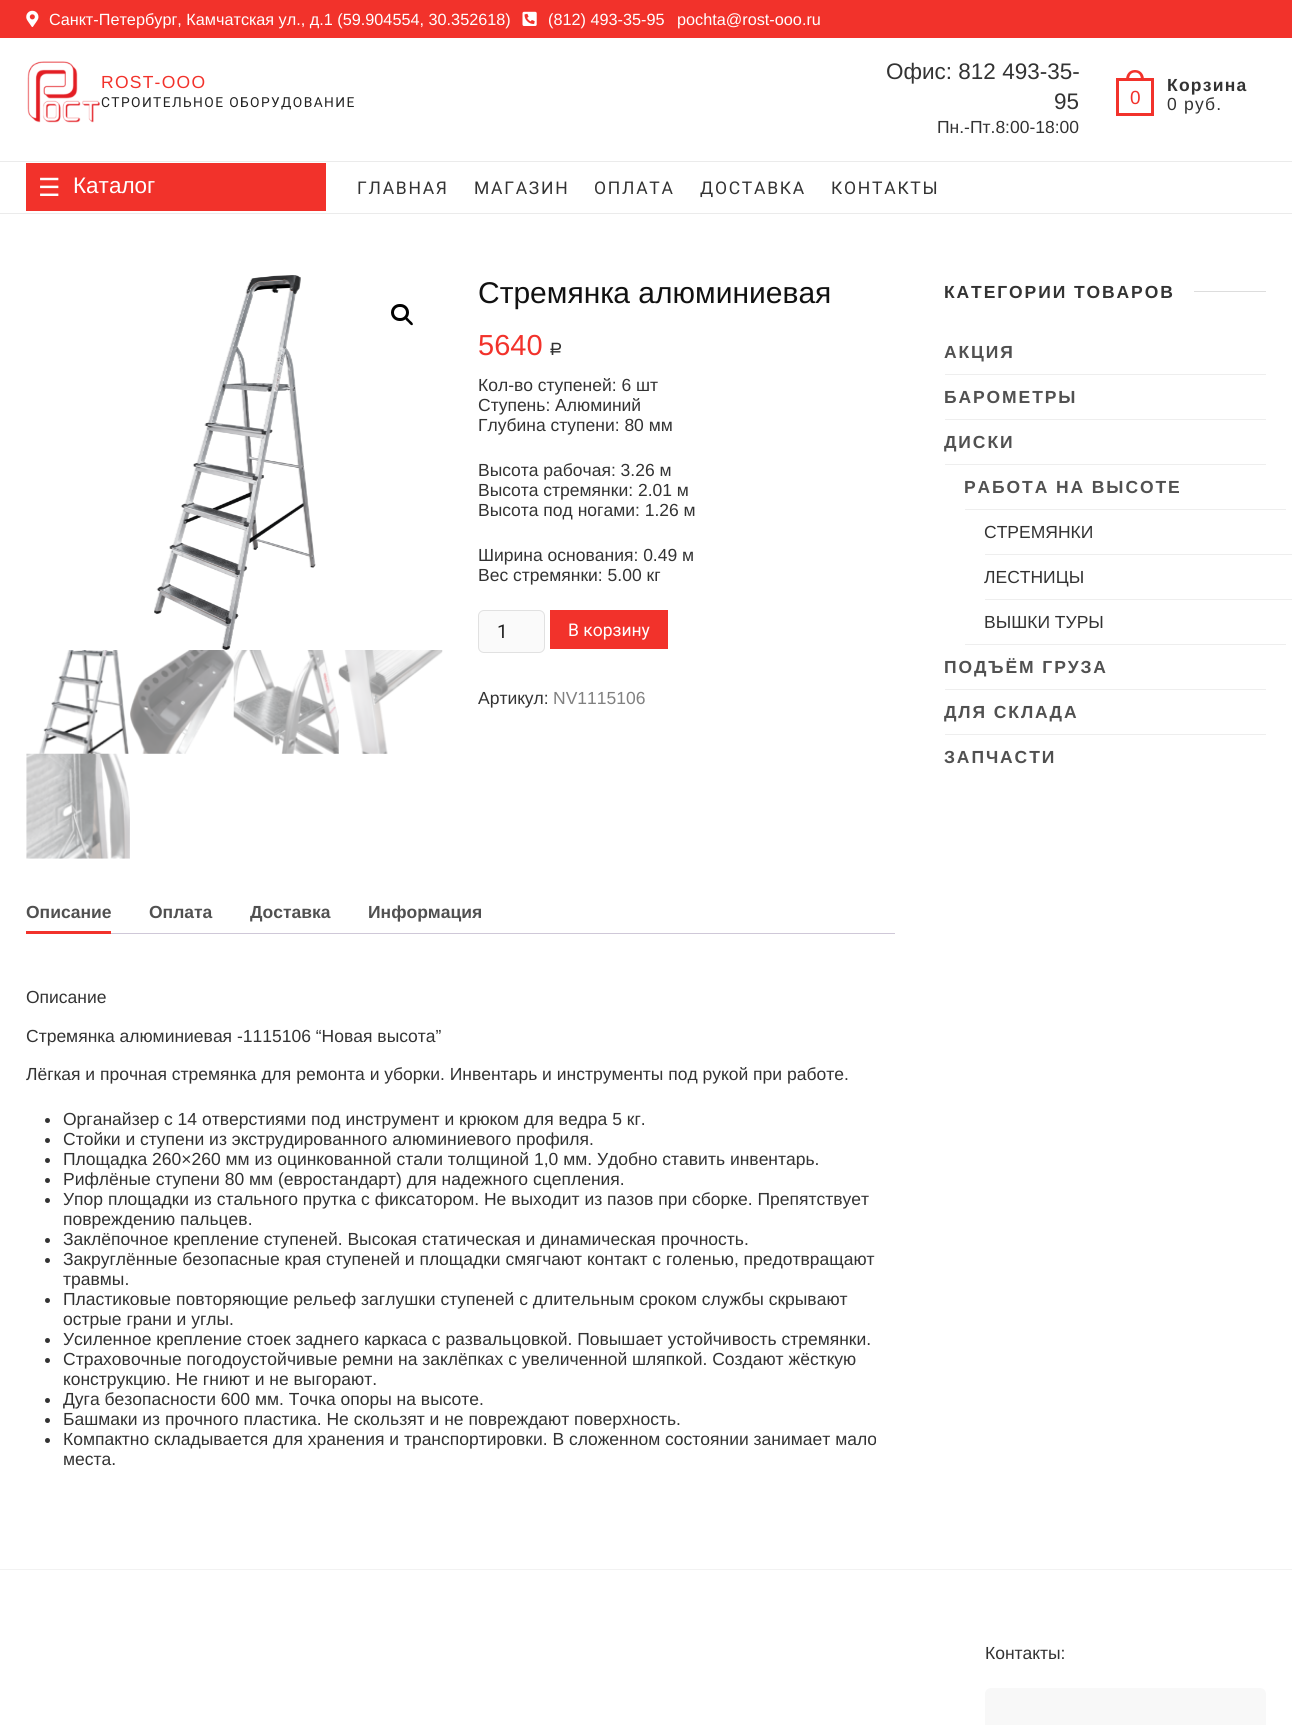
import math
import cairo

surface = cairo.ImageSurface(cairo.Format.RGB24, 1292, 1725)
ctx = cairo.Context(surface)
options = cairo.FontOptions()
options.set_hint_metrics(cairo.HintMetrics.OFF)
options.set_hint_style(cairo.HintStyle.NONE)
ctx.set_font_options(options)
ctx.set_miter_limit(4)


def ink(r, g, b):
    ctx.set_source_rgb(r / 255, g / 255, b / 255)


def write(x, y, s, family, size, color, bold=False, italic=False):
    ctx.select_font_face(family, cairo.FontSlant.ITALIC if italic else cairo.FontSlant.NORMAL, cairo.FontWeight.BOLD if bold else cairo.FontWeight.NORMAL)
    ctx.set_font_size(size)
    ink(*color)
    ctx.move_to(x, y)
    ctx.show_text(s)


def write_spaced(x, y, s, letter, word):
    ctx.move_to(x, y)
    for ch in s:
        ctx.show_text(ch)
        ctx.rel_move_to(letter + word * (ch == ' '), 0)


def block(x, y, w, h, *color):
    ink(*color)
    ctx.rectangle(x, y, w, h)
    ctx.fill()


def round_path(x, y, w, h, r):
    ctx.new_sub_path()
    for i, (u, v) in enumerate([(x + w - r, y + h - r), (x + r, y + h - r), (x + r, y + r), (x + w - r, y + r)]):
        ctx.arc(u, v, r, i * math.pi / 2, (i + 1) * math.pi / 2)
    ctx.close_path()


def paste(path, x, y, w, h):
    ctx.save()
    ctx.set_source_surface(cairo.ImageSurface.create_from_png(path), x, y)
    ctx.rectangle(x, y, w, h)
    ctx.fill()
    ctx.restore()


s1 = dict(family="Liberation Sans", size=16.25, color=(255, 255, 255))
s2 = dict(family="Liberation Sans", size=22.5, color=(51, 51, 51))
s3 = dict(family="Liberation Sans", size=17.5, color=(51, 51, 51))
s4 = dict(family="Liberation Sans", size=19, color=(242, 50, 43))
s5 = dict(family="DejaVu Sans", size=25, color=(255, 255, 255))
s6 = dict(family="Liberation Sans", size=22.5, color=(255, 255, 255))
s7 = dict(family="Liberation Sans", size=30, color=(17, 17, 17))
s8 = dict(family="Liberation Sans", size=29, color=(242, 50, 43))
s9 = dict(family="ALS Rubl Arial", size=17.5, color=(51, 51, 51))
s10 = dict(family="Roboto", size=19, color=(34, 34, 34))
s11 = dict(family="Roboto", size=17.5, color=(255, 255, 255))
s12 = dict(family="Liberation Sans", size=17.5, color=(128, 128, 128))
s13 = dict(family="Liberation Sans", size=17.5, color=(81, 81, 81), bold=True)

ink(255, 255, 255)
ctx.paint()
block(0, 0, 1292, 38, 242, 50, 43)
paste("pic1.png", 26, 10, 13, 17)
write(49, 25, "Санкт-Петербург, Камчатская ул., д.1 (59.904554, 30.352618)", **s1)
paste("pic2.png", 522, 11, 15, 15)
write(548, 25, "(812) 493-35-95", **s1)
write(677, 25, "pochta@rost-ooo.ru", **s1)
paste("pic3.png", 27, 61, 73, 62)
ctx.set_font_size(17.5)
ink(242, 50, 43)
write_spaced(101, 88, "ROST-OOO", 1.25, 0)
ctx.select_font_face("Roboto")
ctx.set_font_size(13.75)
ink(34, 34, 34)
write_spaced(101, 107, "СТРОИТЕЛЬНОЕ ОБОРУДОВАНИЕ", 1.4, 0)
write(886, 79, "Офис: 812 493-35-", **s2)
write(1054, 109, "95", **s2)
write(937, 133, "Пн.-Пт.8:00-18:00", **s3)
ctx.rectangle(1117.5, 79.5, 35, 35)
ink(242, 50, 43)
ctx.set_line_width(3)
ctx.stroke()
ctx.set_fill_rule(cairo.FillRule.EVEN_ODD)
ctx.new_path()
ctx.move_to(1135, 70)
ctx.curve_to(1141, 70, 1144, 74.5, 1144, 80)
ctx.line_to(1126, 80)
ctx.curve_to(1126, 74.5, 1129, 70, 1135, 70)
ctx.close_path()
ctx.move_to(1135, 72.5)
ctx.curve_to(1139.5, 72.5, 1141, 76, 1141, 80)
ctx.line_to(1129, 80)
ctx.curve_to(1129, 76, 1130.5, 72.5, 1135, 72.5)
ctx.close_path()
ctx.fill()
write(1130, 104, "0", **s4)
ctx.select_font_face("Liberation Sans", cairo.FontSlant.NORMAL, cairo.FontWeight.BOLD)
ctx.set_font_size(17.5)
ink(51, 51, 51)
write_spaced(1167, 91, "Корзина", 1.25, 0)
ctx.select_font_face("Liberation Sans")
write_spaced(1167, 110, "0 руб.", 1.25, 0)
block(0, 161, 1292, 1, 235, 235, 235)
block(0, 213, 1292, 1, 235, 235, 235)
block(26, 163, 300, 48, 242, 50, 43)
write(38, 196, "☰", **s5)
write(73, 193, "Каталог", **s6)
ctx.select_font_face("Roboto")
ctx.set_font_size(17.5)
ink(51, 51, 51)
write_spaced(357, 194, "ГЛАВНАЯ", 1.75, 0)
write_spaced(474, 194, "МАГАЗИН", 1.75, 0)
write_spaced(594, 194, "ОПЛАТА", 1.75, 0)
write_spaced(700, 194, "ДОСТАВКА", 1.75, 0)
write_spaced(831, 194, "КОНТАКТЫ", 1.75, 0)
paste("pic4.png", 154, 275, 162, 375)
round_path(392.5, 305.5, 15, 14, 7)
ink(0, 0, 0)
ctx.stroke()
ctx.set_fill_rule(cairo.FillRule.WINDING)
ctx.new_path()
ctx.move_to(405.5, 317.5)
ctx.curve_to(407, 316.5, 409, 319.5, 410, 320.5)
ctx.curve_to(410.5, 321, 414, 323.5, 412.5, 325)
ctx.curve_to(411, 326, 409, 323, 408, 322)
ctx.curve_to(407.5, 321.5, 404, 319, 405.5, 317.5)
ctx.close_path()
ctx.fill()
paste("pic5.png", 38, 650, 91, 104)
paste("pic6.png", 130, 650, 104, 104)
paste("pic7.png", 233, 650, 106, 104)
paste("pic8.png", 338, 650, 105, 104)
paste("pic9.png", 26, 753, 104, 106)
write(478, 303, "Стремянка алюминиевая", **s7)
write(478, 355, "5640", **s8)
write(549, 355, "Р", **s9)
write(478, 391, "Кол-во ступеней: 6 шт", **s3)
write(478, 411, "Ступень: Алюминий", **s3)
write(478, 431, "Глубина ступени: 80 мм", **s3)
write(478, 476, "Высота рабочая: 3.26 м", **s3)
write(478, 496, "Высота стремянки: 2.01 м", **s3)
write(478, 516, "Высота под ногами: 1.26 м", **s3)
write(478, 561, "Ширина основания: 0.49 м", **s3)
write(478, 581, "Вес стремянки: 5.00 кг", **s3)
ink(250, 250, 250)
round_path(478.5, 610.5, 66, 42, 5.5)
ctx.fill_preserve()
ink(225, 225, 225)
ctx.set_line_width(1)
ctx.stroke()
write(497, 638, "1", **s10)
block(550, 610, 118, 39, 242, 50, 43)
write(568, 636, "В корзину", **s11)
write(478, 704, "Артикул:", **s3)
write(553, 704, "NV1115106", **s12)
block(26, 931, 85, 3, 242, 50, 43)
write(26, 918, "Описание", **s13)
write(149, 918, "Оплата", **s13)
write(250, 918, "Доставка", **s13)
write(368, 918, "Информация", **s13)
block(111, 933, 784, 1, 207, 200, 216)
write(26, 1003, "Описание", **s3)
write(26, 1042, "Стремянка алюминиевая -1115106 “Новая высота”", **s3)
write(26, 1080, "Лёгкая и прочная стремянка для ремонта и уборки. Инвентарь и инструменты под рукой при работе.", **s3)
ctx.new_path()
ctx.arc(47.5, 1120.5, 2.5, 0, 2 * math.pi)
ctx.fill()
write(63, 1125, "Органайзер с 14 отверстиями под инструмент и крюком для ведра 5 кг.", **s3)
ctx.new_path()
ctx.arc(47.5, 1140.5, 2.5, 0, 2 * math.pi)
ctx.fill()
write(63, 1145, "Стойки и ступени из экструдированного алюминиевого профиля.", **s3)
ctx.new_path()
ctx.arc(47.5, 1160.5, 2.5, 0, 2 * math.pi)
ctx.fill()
write(63, 1165, "Площадка 260×260 мм из оцинкованной стали толщиной 1,0 мм. Удобно ставить инвентарь.", **s3)
ctx.new_path()
ctx.arc(47.5, 1180.5, 2.5, 0, 2 * math.pi)
ctx.fill()
write(63, 1185, "Рифлёные ступени 80 мм (евростандарт) для надежного сцепления.", **s3)
ctx.new_path()
ctx.arc(47.5, 1200.5, 2.5, 0, 2 * math.pi)
ctx.fill()
write(63, 1205, "Упор площадки из стального прутка с фиксатором. Не выходит из пазов при сборке. Препятствует", **s3)
write(63, 1225, "повреждению пальцев.", **s3)
ctx.new_path()
ctx.arc(47.5, 1240.5, 2.5, 0, 2 * math.pi)
ctx.fill()
write(63, 1245, "Заклёпочное крепление ступеней. Высокая статическая и динамическая прочность.", **s3)
ctx.new_path()
ctx.arc(47.5, 1260.5, 2.5, 0, 2 * math.pi)
ctx.fill()
write(63, 1265, "Закруглённые безопасные края ступеней и площадки смягчают контакт с голенью, предотвращают", **s3)
write(63, 1285, "травмы.", **s3)
ctx.new_path()
ctx.arc(47.5, 1300.5, 2.5, 0, 2 * math.pi)
ctx.fill()
write(63, 1305, "Пластиковые повторяющие рельеф заглушки ступеней с длительным сроком службы скрывают", **s3)
write(63, 1325, "острые грани и углы.", **s3)
ctx.new_path()
ctx.arc(47.5, 1340.5, 2.5, 0, 2 * math.pi)
ctx.fill()
write(63, 1345, "Усиленное крепление стоек заднего каркаса с развальцовкой. Повышает устойчивость стремянки.", **s3)
ctx.new_path()
ctx.arc(47.5, 1360.5, 2.5, 0, 2 * math.pi)
ctx.fill()
write(63, 1365, "Страховочные погодоустойчивые ремни на заклёпках с увеличенной шляпкой. Создают жёсткую", **s3)
write(63, 1385, "конструкцию. Не гниют и не выгорают.", **s3)
ctx.new_path()
ctx.arc(47.5, 1400.5, 2.5, 0, 2 * math.pi)
ctx.fill()
write(63, 1405, "Дуга безопасности 600 мм. Точка опоры на высоте.", **s3)
ctx.new_path()
ctx.arc(47.5, 1420.5, 2.5, 0, 2 * math.pi)
ctx.fill()
write(63, 1425, "Башмаки из прочного пластика. Не скользят и не повреждают поверхность.", **s3)
ctx.new_path()
ctx.arc(47.5, 1440.5, 2.5, 0, 2 * math.pi)
ctx.fill()
write(63, 1445, "Компактно складывается для хранения и транспортировки. В сложенном состоянии занимает мало", **s3)
write(63, 1465, "места.", **s3)
ctx.select_font_face("Liberation Sans", cairo.FontSlant.NORMAL, cairo.FontWeight.BOLD)
write_spaced(944, 298, "КАТЕГОРИИ ТОВАРОВ", 1.9, 0)
block(1194, 291, 72, 1, 221, 221, 221)
block(945, 374, 321, 1, 238, 238, 238)
ink(81, 81, 81)
write_spaced(944, 358, "АКЦИЯ", 1.9, 0)
block(945, 419, 321, 1, 238, 238, 238)
ink(81, 81, 81)
write_spaced(944, 403, "БАРОМЕТРЫ", 1.9, 0)
block(945, 464, 321, 1, 238, 238, 238)
ink(81, 81, 81)
write_spaced(944, 448, "ДИСКИ", 1.9, 0)
block(965, 644, 321, 1, 238, 238, 238)
ink(81, 81, 81)
write_spaced(964, 493, "РАБОТА НА ВЫСОТЕ", 1.9, 0)
block(965, 509, 321, 1, 238, 238, 238)
block(985, 554, 307, 1, 238, 238, 238)
write(984, 538, "СТРЕМЯНКИ", **s3)
block(985, 599, 307, 1, 238, 238, 238)
write(984, 583, "ЛЕСТНИЦЫ", **s3)
write(984, 628, "ВЫШКИ ТУРЫ", **s3)
block(945, 689, 321, 1, 238, 238, 238)
ctx.select_font_face("Liberation Sans", cairo.FontSlant.NORMAL, cairo.FontWeight.BOLD)
ink(81, 81, 81)
write_spaced(944, 673, "ПОДЪЁМ ГРУЗА", 1.9, 0)
block(945, 734, 321, 1, 238, 238, 238)
ink(81, 81, 81)
write_spaced(944, 718, "ДЛЯ СКЛАДА", 1.9, 0)
write_spaced(944, 763, "ЗАПЧАСТИ", 1.9, 0)
block(0, 1569, 1292, 1, 242, 242, 242)
write(985, 1659, "Контакты:", **s3)
ink(248, 248, 248)
round_path(985, 1688, 281, 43, 6)
ctx.fill()
surface.write_to_png("screenshot.png")
